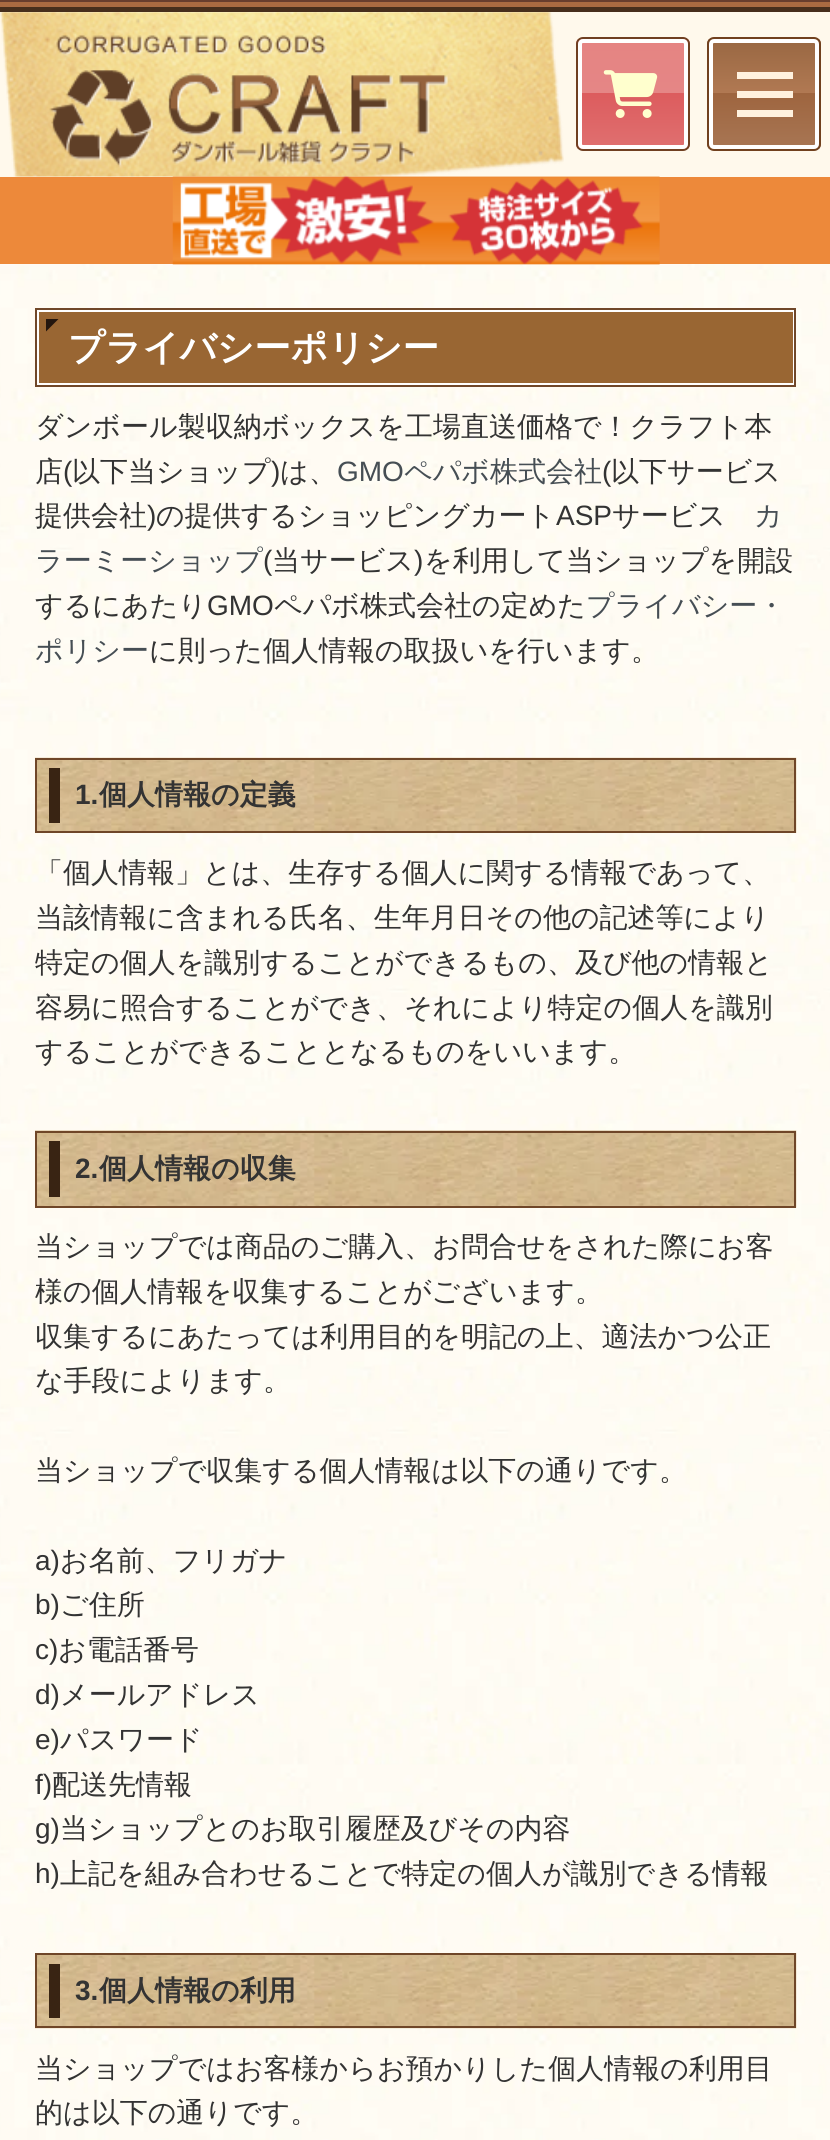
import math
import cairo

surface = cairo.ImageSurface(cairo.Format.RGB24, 830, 2140)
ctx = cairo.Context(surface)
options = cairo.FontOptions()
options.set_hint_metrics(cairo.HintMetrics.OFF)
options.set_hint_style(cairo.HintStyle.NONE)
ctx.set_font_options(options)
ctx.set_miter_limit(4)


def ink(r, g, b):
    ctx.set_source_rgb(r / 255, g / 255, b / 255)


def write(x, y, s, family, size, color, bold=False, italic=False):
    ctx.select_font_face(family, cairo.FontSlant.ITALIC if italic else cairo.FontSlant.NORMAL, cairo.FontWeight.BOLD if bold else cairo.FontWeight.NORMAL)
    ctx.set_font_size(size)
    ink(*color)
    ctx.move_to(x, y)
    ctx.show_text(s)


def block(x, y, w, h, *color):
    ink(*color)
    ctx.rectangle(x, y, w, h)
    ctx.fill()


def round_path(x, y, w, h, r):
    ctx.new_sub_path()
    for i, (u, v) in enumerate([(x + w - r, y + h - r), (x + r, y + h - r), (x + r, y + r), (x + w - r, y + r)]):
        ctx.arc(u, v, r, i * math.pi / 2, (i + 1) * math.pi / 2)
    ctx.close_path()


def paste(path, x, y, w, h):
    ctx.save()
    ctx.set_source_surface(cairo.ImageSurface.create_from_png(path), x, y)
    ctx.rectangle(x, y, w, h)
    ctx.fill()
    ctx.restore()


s1 = dict(family="WenQuanYi Zen Hei", size=36.4, color=(255, 255, 255), bold=True)
s2 = dict(family="WenQuanYi Zen Hei Medium", size=28, color=(51, 51, 51))
s3 = dict(family="Liberation Sans", size=28, color=(51, 51, 51))
s4 = dict(family="Liberation Sans", size=28, color=(70, 78, 84))
s5 = dict(family="WenQuanYi Zen Hei Medium", size=28, color=(70, 78, 84))
s6 = dict(family="Liberation Sans", size=28, color=(51, 51, 51), bold=True)
s7 = dict(family="WenQuanYi Zen Hei", size=28, color=(51, 51, 51), bold=True)

ink(255, 255, 255)
ctx.paint()
paste("pic1.png", 0, 264, 830, 1876)
block(0, 12, 830, 165, 255, 249, 236)
block(0, 0, 830, 2, 104, 61, 45)
block(0, 2, 830, 5, 170, 106, 65)
block(0, 7, 830, 5, 71, 46, 28)
paste("pic2.png", 0, 12, 564, 165)
ctx.save()
round_path(576, 37, 114, 114, 7)
ctx.clip()
gradient = cairo.LinearGradient(633, 38, 633, 149)
gradient.add_color_stop_rgba(0, 0.898, 0.518, 0.51, 1)
gradient.add_color_stop_rgba(0.5, 0.898, 0.525, 0.525, 1)
gradient.add_color_stop_rgba(0.5, 0.863, 0.361, 0.369, 1)
gradient.add_color_stop_rgba(1, 0.878, 0.439, 0.439, 1)
ctx.set_source(gradient)
ctx.rectangle(576, 39, 114, 110)
ctx.fill()
ctx.restore()
round_path(577, 38, 112, 112, 6)
ink(112, 64, 33)
ctx.stroke()
paste("pic3.png", 603, 70, 55, 48)
round_path(580, 41, 106, 106, 3)
ink(255, 255, 255)
ctx.set_line_width(4)
ctx.stroke()
block(0, 177, 830, 87, 237, 137, 58)
paste("pic4.png", 172, 176, 488, 89)
ctx.save()
round_path(707, 37, 114, 114, 7)
ctx.clip()
gradient = cairo.LinearGradient(764, 38, 764, 149)
gradient.add_color_stop_rgba(0, 0.596, 0.404, 0.259, 1)
gradient.add_color_stop_rgba(0.5, 0.694, 0.475, 0.325, 1)
gradient.add_color_stop_rgba(0.5, 0.62, 0.396, 0.247, 1)
gradient.add_color_stop_rgba(1, 0.659, 0.463, 0.329, 1)
ctx.set_source(gradient)
ctx.rectangle(707, 39, 114, 110)
ctx.fill()
ctx.restore()
round_path(708, 38, 112, 112, 6)
ink(113, 65, 30)
ctx.set_line_width(2)
ctx.stroke()
round_path(711, 41, 106, 106, 3)
ink(255, 255, 255)
ctx.set_line_width(4)
ctx.stroke()
block(737, 72, 56, 7, 255, 241, 222)
block(737, 91, 56, 7, 255, 241, 222)
block(737, 110, 56, 7, 255, 241, 222)
ink(153, 102, 51)
ctx.rectangle(38, 311, 756, 73)
ctx.fill_preserve()
ink(255, 255, 255)
ctx.set_line_width(2)
ctx.stroke()
ctx.rectangle(36, 309, 759, 77)
ink(112, 71, 41)
ctx.stroke()
ink(36, 22, 14)
ctx.new_path()
ctx.move_to(46, 319)
ctx.line_to(58.5, 319)
ctx.line_to(46, 331.5)
ctx.close_path()
ctx.fill()
write(68, 360, "プライバシーポリシー", **s1)
write(35, 436, "ダンボール製収納ボックスを工場直送価格で！クラフト本", **s2)
write(35, 481, "店", **s2)
write(63, 481, "(", **s3)
write(72, 481, "以下当ショップ", **s2)
write(271, 481, ")", **s3)
write(280, 481, "は、", **s2)
write(337, 481, "GMO", **s4)
write(404, 481, "ペパボ株式会社", **s5)
write(602, 481, "(", **s3)
write(611, 481, "以下サービス", **s2)
write(35, 525, "提供会社", **s2)
write(147, 525, ")", **s3)
write(156, 525, "の提供するショッピングカート", **s2)
write(556, 525, "ASP", **s3)
write(612, 525, "サービス", **s2)
write(754, 525, "カ", **s5)
write(35, 570, "ラーミーショップ", **s5)
write(263, 570, "(", **s3)
write(272, 570, "当サービス", **s2)
write(414, 570, ")", **s3)
write(424, 570, "を利用して当ショップを開設", **s2)
write(35, 615, "するにあたり", **s2)
write(207, 615, "GMO", **s3)
write(274, 615, "ペパボ株式会社の定めた", **s2)
write(586, 615, "プライバシー・", **s5)
write(35, 660, "ポリシー", **s5)
write(149, 660, "に則った個人情報の取扱いを行います。", **s2)
paste("pic5.png", 35, 757, 762, 76)
ctx.rectangle(36, 759, 759, 73)
ink(111, 70, 40)
ctx.stroke()
block(49, 768, 11, 55, 57, 36, 19)
write(75, 804, "1.", **s6)
write(99, 804, "個人情報の定義", **s7)
write(35, 882, "「個人情報」とは、生存する個人に関する情報であって、", **s2)
write(35, 927, "当該情報に含まれる氏名、生年月日その他の記述等により", **s2)
write(35, 972, "特定の個人を識別することができるもの、及び他の情報と", **s2)
write(35, 1017, "容易に照合することができ、それにより特定の個人を識別", **s2)
write(35, 1061, "することができることとなるものをいいます。", **s2)
paste("pic6.png", 35, 1130, 762, 78)
ctx.rectangle(36, 1132, 759, 75)
ink(111, 70, 40)
ctx.stroke()
block(49, 1141, 11, 56, 57, 36, 19)
write(75, 1178, "2.", **s6)
write(99, 1178, "個人情報の収集", **s7)
write(35, 1256, "当ショップでは商品のご購入、お問合せをされた際にお客", **s2)
write(35, 1301, "様の個人情報を収集することがございます。", **s2)
write(35, 1346, "収集するにあたっては利用目的を明記の上、適法かつ公正", **s2)
write(35, 1390, "な手段によります。", **s2)
write(35, 1480, "当ショップで収集する個人情報は以下の通りです。", **s2)
write(35, 1570, "a)", **s3)
write(60, 1570, "お名前、フリガナ", **s2)
write(35, 1614, "b)", **s3)
write(60, 1614, "ご住所", **s2)
write(35, 1659, "c)", **s3)
write(58, 1659, "お電話番号", **s2)
write(35, 1704, "d)", **s3)
write(60, 1704, "メールアドレス", **s2)
write(35, 1749, "e)", **s3)
write(60, 1749, "パスワード", **s2)
write(35, 1794, "f)", **s3)
write(52, 1794, "配送先情報", **s2)
write(35, 1838, "g)", **s3)
write(60, 1838, "当ショップとのお取引履歴及びその内容", **s2)
write(35, 1883, "h)", **s3)
write(60, 1883, "上記を組み合わせることで特定の個人が識別できる情報", **s2)
paste("pic7.png", 35, 1953, 762, 76)
ctx.rectangle(36, 1954, 759, 73)
ink(111, 70, 40)
ctx.stroke()
block(49, 1964, 11, 54, 57, 36, 19)
write(75, 2000, "3.", **s6)
write(99, 2000, "個人情報の利用", **s7)
write(35, 2078, "当ショップではお客様からお預かりした個人情報の利用目", **s2)
write(35, 2122, "的は以下の通りです。", **s2)
surface.write_to_png("screenshot.png")
